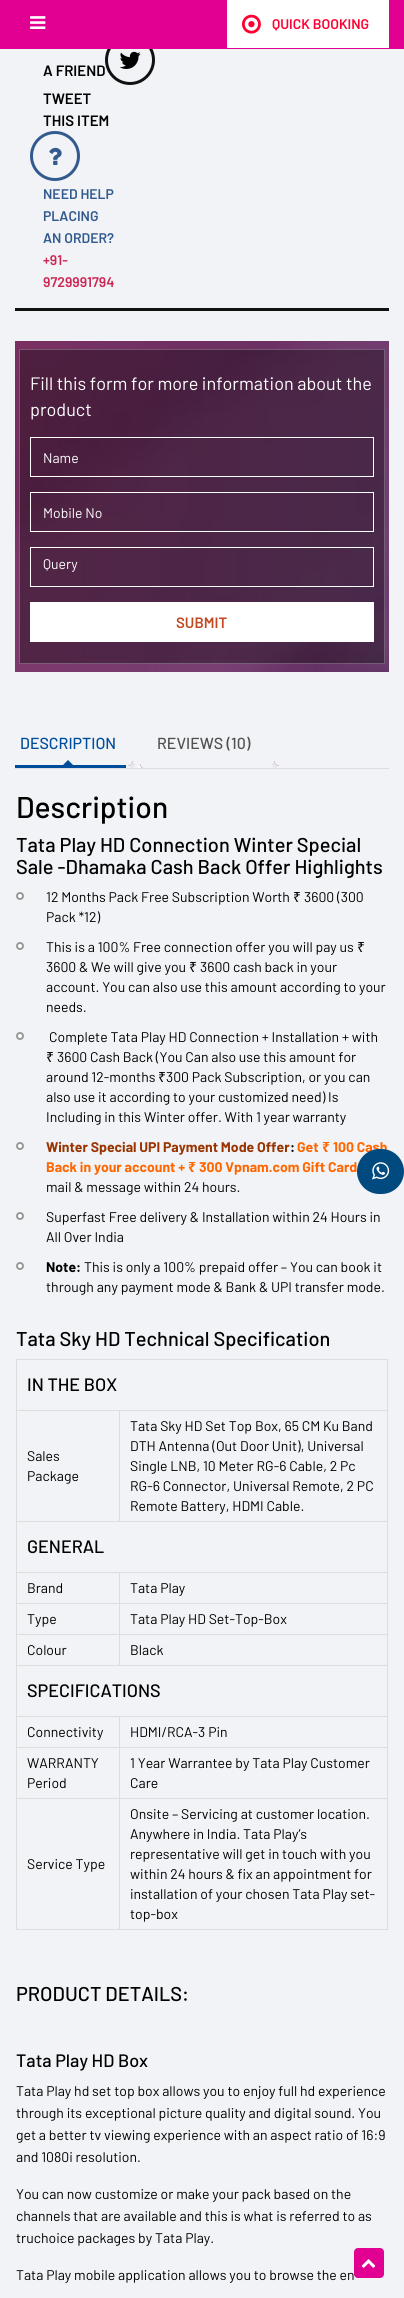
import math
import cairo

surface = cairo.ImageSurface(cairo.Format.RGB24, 404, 2298)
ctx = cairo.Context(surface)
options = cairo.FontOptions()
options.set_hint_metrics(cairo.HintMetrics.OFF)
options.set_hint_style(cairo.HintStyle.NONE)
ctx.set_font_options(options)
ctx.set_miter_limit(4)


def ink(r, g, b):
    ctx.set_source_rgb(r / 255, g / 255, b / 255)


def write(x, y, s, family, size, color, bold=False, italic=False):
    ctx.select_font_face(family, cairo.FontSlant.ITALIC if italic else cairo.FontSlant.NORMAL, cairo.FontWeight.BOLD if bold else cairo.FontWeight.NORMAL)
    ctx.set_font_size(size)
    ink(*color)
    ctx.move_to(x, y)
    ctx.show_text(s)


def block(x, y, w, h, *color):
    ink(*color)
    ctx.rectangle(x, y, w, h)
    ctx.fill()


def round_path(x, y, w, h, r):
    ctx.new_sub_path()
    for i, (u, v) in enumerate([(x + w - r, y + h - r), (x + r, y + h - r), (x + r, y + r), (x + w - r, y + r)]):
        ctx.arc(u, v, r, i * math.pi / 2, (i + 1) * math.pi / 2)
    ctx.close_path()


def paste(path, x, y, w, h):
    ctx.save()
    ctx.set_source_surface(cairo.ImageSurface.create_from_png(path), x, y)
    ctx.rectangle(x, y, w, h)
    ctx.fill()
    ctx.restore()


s1 = dict(family="Barlow SemiBold", size=14, color=(255, 0, 51))
s2 = dict(family="Barlow SemiBold", size=15, color=(0, 0, 0))
s3 = dict(family="Barlow SemiBold", size=14, color=(50, 90, 142))
s4 = dict(family="Barlow SemiBold", size=14, color=(205, 38, 83))
s5 = dict(family="Barlow", size=18, color=(255, 255, 255))
s6 = dict(family="Barlow", size=14, color=(255, 255, 255))
s7 = dict(family="Barlow SemiBold", size=15, color=(193, 72, 33))
s8 = dict(family="Barlow Medium", size=16, color=(0, 77, 155))
s9 = dict(family="Barlow Medium", size=16, color=(81, 81, 81))
s10 = dict(family="Barlow Medium", size=30, color=(0, 0, 0))
s11 = dict(family="Barlow Medium", size=20, color=(0, 0, 0))
s12 = dict(family="Barlow", size=14, color=(0, 0, 0))
s13 = dict(family="Noto Sans", size=14, color=(0, 0, 0))
s14 = dict(family="Barlow", size=14, color=(153, 51, 0), bold=True)
s15 = dict(family="Barlow", size=14, color=(0, 0, 0), bold=True)
s16 = dict(family="Barlow", size=14, color=(255, 102, 0), bold=True)
s17 = dict(family="Noto Sans", size=14, color=(255, 102, 0), bold=True)
s18 = dict(family="Barlow Medium", size=18, color=(0, 0, 0))

ink(241, 243, 246)
ctx.paint()
ctx.arc(130, 60, 23.5, 0, 2 * math.pi)
ink(17, 17, 17)
ctx.set_line_width(3)
ctx.stroke()
block(0, 0, 404, 49, 225, 0, 146)
paste("pic1.png", 30, 16, 16, 13)
block(227, 0, 162, 48, 255, 255, 255)
paste("pic2.png", 242, 14, 19, 20)
write(272, 29, "QUICK BOOKING", **s1)
block(15, 308, 374, 3, 17, 17, 17)
write(43, 76, "A FRIEND", **s2)
paste("pic3.png", 119, 51, 22, 18)
write(43, 104, "TWEET", **s2)
write(43, 126, "THIS ITEM", **s2)
ctx.new_path()
ctx.arc(55, 156, 23.5, 0, 2 * math.pi)
ink(50, 90, 142)
ctx.stroke()
paste("pic4.png", 49, 147, 13, 18)
write(43, 199, "NEED HELP", **s3)
write(43, 221, "PLACING", **s3)
write(43, 243, "AN ORDER?", **s3)
write(43, 265, "+91-", **s4)
write(43, 287, "9729991794", **s4)
paste("pic5.png", 15, 341, 374, 331)
ctx.rectangle(19.5, 349.5, 365, 314)
ctx.set_source_rgba(1, 1, 1, 0.25)
ctx.set_line_width(1)
ctx.stroke()
write(30, 390, "Fill this form for more information about the", **s5)
write(30, 416, "product", **s5)
ctx.rectangle(30.5, 437.5, 343, 39)
ctx.stroke()
write(43, 463, "Name", **s6)
ctx.rectangle(30.5, 492.5, 343, 39)
ctx.stroke()
write(43, 518, "Mobile No", **s6)
ctx.rectangle(30.5, 547.5, 343, 39)
ctx.stroke()
write(43, 569, "Query", **s6)
block(30, 602, 344, 40, 255, 255, 255)
write(176, 628, "SUBMIT", **s7)
block(15, 768, 374, 1, 221, 221, 221)
block(15, 765, 111, 3, 0, 77, 155)
write(20, 749, "DESCRIPTION", **s8)
ctx.new_path()
ctx.move_to(73, 765)
ctx.line_to(63, 765)
ctx.line_to(68, 760)
ctx.close_path()
ctx.fill()
ctx.save()
ctx.rectangle(15, 722, 374, 46)
ctx.clip()
ink(255, 255, 255)
ctx.new_path()
ctx.move_to(138, 766)
ctx.curve_to(138, 769.5, 139.5, 771, 143, 771)
ctx.line_to(143, 769)
ctx.curve_to(141.5, 768.5, 140.5, 767.5, 140, 766)
ctx.close_path()
ctx.fill()
ink(207, 200, 216)
ctx.set_fill_rule(cairo.FillRule.EVEN_ODD)
ctx.new_path()
ctx.move_to(140, 764)
ctx.line_to(145, 764)
ctx.line_to(145, 769)
ctx.curve_to(142.5, 769, 140, 768, 140, 765)
ctx.close_path()
ctx.move_to(141, 764)
ctx.line_to(145, 764)
ctx.line_to(145, 768)
ctx.curve_to(143, 768, 141, 767.5, 141, 765)
ctx.close_path()
ctx.fill()
ctx.restore()
write(157, 749, "REVIEWS (10)", **s9)
ink(233, 230, 237)
ctx.new_path()
ctx.move_to(130, 766)
ctx.line_to(130, 768)
ctx.curve_to(133.5, 768, 135, 766.5, 135, 763)
ctx.line_to(133, 763)
ctx.curve_to(132.5, 764.5, 131.5, 765.5, 130, 766)
ctx.close_path()
ctx.fill()
ink(207, 200, 216)
ctx.set_fill_rule(cairo.FillRule.EVEN_ODD)
ctx.new_path()
ctx.move_to(128, 761)
ctx.line_to(133, 761)
ctx.curve_to(133, 764.5, 131.5, 766, 128, 766)
ctx.close_path()
ctx.move_to(128, 761)
ctx.line_to(132, 761)
ctx.curve_to(132, 764, 131, 765, 128, 765)
ctx.close_path()
ctx.fill()
ink(233, 230, 237)
ctx.set_fill_rule(cairo.FillRule.WINDING)
ctx.new_path()
ctx.move_to(272, 763)
ctx.curve_to(272, 766.5, 273.5, 768, 277, 768)
ctx.line_to(277, 766)
ctx.curve_to(275.5, 765.5, 274.5, 764.5, 274, 763)
ctx.close_path()
ctx.fill()
ink(207, 200, 216)
ctx.set_fill_rule(cairo.FillRule.EVEN_ODD)
ctx.new_path()
ctx.move_to(274, 761)
ctx.line_to(279, 761)
ctx.line_to(279, 766)
ctx.curve_to(276.5, 766, 274, 765, 274, 762)
ctx.close_path()
ctx.move_to(275, 761)
ctx.line_to(279, 761)
ctx.line_to(279, 765)
ctx.curve_to(277, 765, 275, 764.5, 275, 762)
ctx.close_path()
ctx.fill()
write(16, 818, "Description", **s10)
write(16, 852, "Tata Play HD Connection Winter Special", **s11)
write(16, 874, "Sale -Dhamaka Cash Back Offer Highlights", **s11)
ink(255, 255, 255)
ctx.new_path()
ctx.arc(20, 896, 3, 0, 2 * math.pi)
ctx.fill_preserve()
ink(153, 153, 153)
ctx.set_line_width(2)
ctx.stroke()
write(46, 902, "12 Months Pack Free Subscription Worth", **s12)
write(293, 902, "₹", **s13)
write(304, 902, "3600 (300", **s12)
write(46, 922, "Pack *12)", **s12)
ink(255, 255, 255)
ctx.new_path()
ctx.arc(20, 946, 3, 0, 2 * math.pi)
ctx.fill_preserve()
ink(153, 153, 153)
ctx.stroke()
write(46, 952, "This is a 100% Free connection offer you will pay us", **s12)
write(357, 952, "₹", **s13)
write(46, 972, "3600 & We will give you", **s12)
write(189, 972, "₹", **s13)
write(200, 972, "3600 cash back in your", **s12)
write(46, 992, "account. You can also use this amount according to your", **s12)
write(46, 1012, "needs.", **s12)
ink(255, 255, 255)
ctx.new_path()
ctx.arc(20, 1036, 3, 0, 2 * math.pi)
ctx.fill_preserve()
ink(153, 153, 153)
ctx.stroke()
write(49, 1042, "Complete Tata Play HD Connection + Installation + with", **s12)
write(46, 1062, "₹", **s13)
write(57, 1062, "3600 Cash Back (You Can also use this amount for", **s12)
write(46, 1082, "around 12-months", **s12)
write(158, 1082, "₹", **s13)
write(166, 1082, "300 Pack Subscription, or you can", **s12)
write(46, 1102, "also use it according to your customized need) Is", **s12)
write(46, 1122, "Including in this Winter offer. With 1 year warranty", **s12)
ink(255, 255, 255)
ctx.new_path()
ctx.arc(20, 1146, 3, 0, 2 * math.pi)
ctx.fill_preserve()
ink(153, 153, 153)
ctx.stroke()
write(46, 1152, "Winter Special UPI Payment Mode Offer", **s14)
write(290, 1152, ":", **s15)
write(297, 1152, "Get", **s16)
write(322, 1152, "₹", **s17)
write(333, 1152, "100 Cash", **s16)
write(46, 1172, "Back in your account +", **s16)
write(188, 1172, "₹", **s17)
write(199, 1172, "300 Vpnam.com Gift Card", **s16)
write(46, 1192, "mail & message within 24 hours.", **s12)
ink(255, 255, 255)
ctx.new_path()
ctx.arc(20, 1216, 3, 0, 2 * math.pi)
ctx.fill_preserve()
ink(153, 153, 153)
ctx.stroke()
write(46, 1222, "Superfast Free delivery & Installation within 24 Hours in", **s12)
write(46, 1242, "All Over India", **s12)
ink(255, 255, 255)
ctx.new_path()
ctx.arc(20, 1266, 3, 0, 2 * math.pi)
ctx.fill_preserve()
ink(153, 153, 153)
ctx.stroke()
write(46, 1272, "Note:", **s15)
write(84, 1272, "This is only a 100% prepaid offer – You can book it", **s12)
write(46, 1292, "through any payment mode & Bank & UPI transfer mode.", **s12)
write(16, 1346, "Tata Sky HD Technical Specification", **s11)
block(16, 1359, 372, 1, 221, 221, 221)
block(119, 1410, 269, 1, 221, 221, 221)
block(16, 1521, 372, 1, 221, 221, 221)
block(119, 1572, 269, 1, 221, 221, 221)
block(119, 1603, 269, 1, 221, 221, 221)
block(119, 1634, 269, 1, 221, 221, 221)
block(16, 1665, 372, 1, 221, 221, 221)
block(119, 1716, 269, 1, 221, 221, 221)
block(119, 1747, 269, 1, 221, 221, 221)
block(119, 1798, 269, 1, 221, 221, 221)
block(387, 1798, 1, 132, 221, 221, 221)
block(387, 1747, 1, 52, 221, 221, 221)
block(387, 1716, 1, 32, 221, 221, 221)
block(387, 1665, 1, 52, 221, 221, 221)
block(387, 1634, 1, 32, 221, 221, 221)
block(387, 1603, 1, 32, 221, 221, 221)
block(387, 1572, 1, 32, 221, 221, 221)
block(387, 1521, 1, 52, 221, 221, 221)
block(387, 1410, 1, 112, 221, 221, 221)
block(387, 1359, 1, 52, 221, 221, 221)
block(119, 1410, 1, 112, 221, 221, 221)
block(16, 1410, 104, 1, 221, 221, 221)
block(119, 1634, 1, 32, 221, 221, 221)
block(16, 1634, 104, 1, 221, 221, 221)
block(119, 1603, 1, 32, 221, 221, 221)
block(16, 1603, 104, 1, 221, 221, 221)
block(119, 1572, 1, 32, 221, 221, 221)
block(16, 1572, 104, 1, 221, 221, 221)
block(119, 1929, 269, 1, 221, 221, 221)
block(119, 1798, 1, 132, 221, 221, 221)
block(16, 1798, 104, 1, 221, 221, 221)
block(119, 1747, 1, 52, 221, 221, 221)
block(16, 1747, 104, 1, 221, 221, 221)
block(119, 1716, 1, 32, 221, 221, 221)
block(16, 1716, 104, 1, 221, 221, 221)
block(16, 1929, 104, 1, 221, 221, 221)
block(16, 1798, 1, 132, 221, 221, 221)
block(16, 1747, 1, 52, 221, 221, 221)
block(16, 1716, 1, 32, 221, 221, 221)
block(16, 1665, 1, 52, 221, 221, 221)
block(16, 1634, 1, 32, 221, 221, 221)
block(16, 1603, 1, 32, 221, 221, 221)
block(16, 1572, 1, 32, 221, 221, 221)
block(16, 1521, 1, 52, 221, 221, 221)
block(16, 1410, 1, 112, 221, 221, 221)
block(16, 1359, 1, 52, 221, 221, 221)
write(27, 1391, "IN THE BOX", **s18)
write(27, 1461, "Sales", **s12)
write(27, 1481, "Package", **s12)
write(130, 1431, "Tata Sky HD Set Top Box, 65 CM Ku Band", **s12)
write(130, 1451, "DTH Antenna (Out Door Unit), Universal", **s12)
write(130, 1471, "Single LNB, 10 Meter RG-6 Cable, 2 Pc", **s12)
write(130, 1491, "RG-6 Connector, Universal Remote, 2 PC", **s12)
write(130, 1511, "Remote Battery, HDMI Cable.", **s12)
write(27, 1553, "GENERAL", **s18)
write(27, 1593, "Brand", **s12)
write(130, 1593, "Tata Play", **s12)
write(27, 1624, "Type", **s12)
write(130, 1624, "Tata Play HD Set-Top-Box", **s12)
write(27, 1655, "Colour", **s12)
write(130, 1655, "Black", **s12)
write(27, 1697, "SPECIFICATIONS", **s18)
write(27, 1737, "Connectivity", **s12)
write(130, 1737, "HDMI/RCA-3 Pin", **s12)
write(27, 1768, "WARRANTY", **s12)
write(27, 1788, "Period", **s12)
write(130, 1768, "1 Year Warrantee by Tata Play Customer", **s12)
write(130, 1788, "Care", **s12)
write(27, 1869, "Service Type", **s12)
write(130, 1819, "Onsite – Servicing at customer location.", **s12)
write(130, 1839, "Anywhere in India. Tata Play’s", **s12)
write(130, 1859, "representative will get in touch with you", **s12)
write(130, 1879, "within 24 hours & fix an appointment for", **s12)
write(130, 1899, "installation of your chosen Tata Play set-", **s12)
write(130, 1919, "top-box", **s12)
write(16, 2001, "PRODUCT DETAILS:", **s11)
write(16, 2067, "Tata Play HD Box", **s18)
write(16, 2096, "Tata Play hd set top box allows you to enjoy full hd experience", **s12)
write(16, 2118, "through its exceptional picture quality and digital sound. You", **s12)
write(16, 2140, "get a better tv viewing experience with an aspect ratio of 16:9", **s12)
write(16, 2162, "and 1080i resolution.", **s12)
write(16, 2199, "You can now customize or make your pack based on the", **s12)
write(16, 2221, "channels that are available and this is what is referred to as", **s12)
write(16, 2243, "truchoice packages by Tata Play.", **s12)
write(16, 2280, "Tata Play mobile application allows you to browse the en", **s12)
ink(0, 74, 127)
round_path(357, 1149, 47, 45, 22.5)
ctx.fill()
paste("pic6.png", 372, 1162, 18, 18)
ink(225, 0, 146)
round_path(354, 2248, 30, 30, 4)
ctx.fill()
paste("pic7.png", 361, 2259, 15, 9)
surface.write_to_png("screenshot.png")
